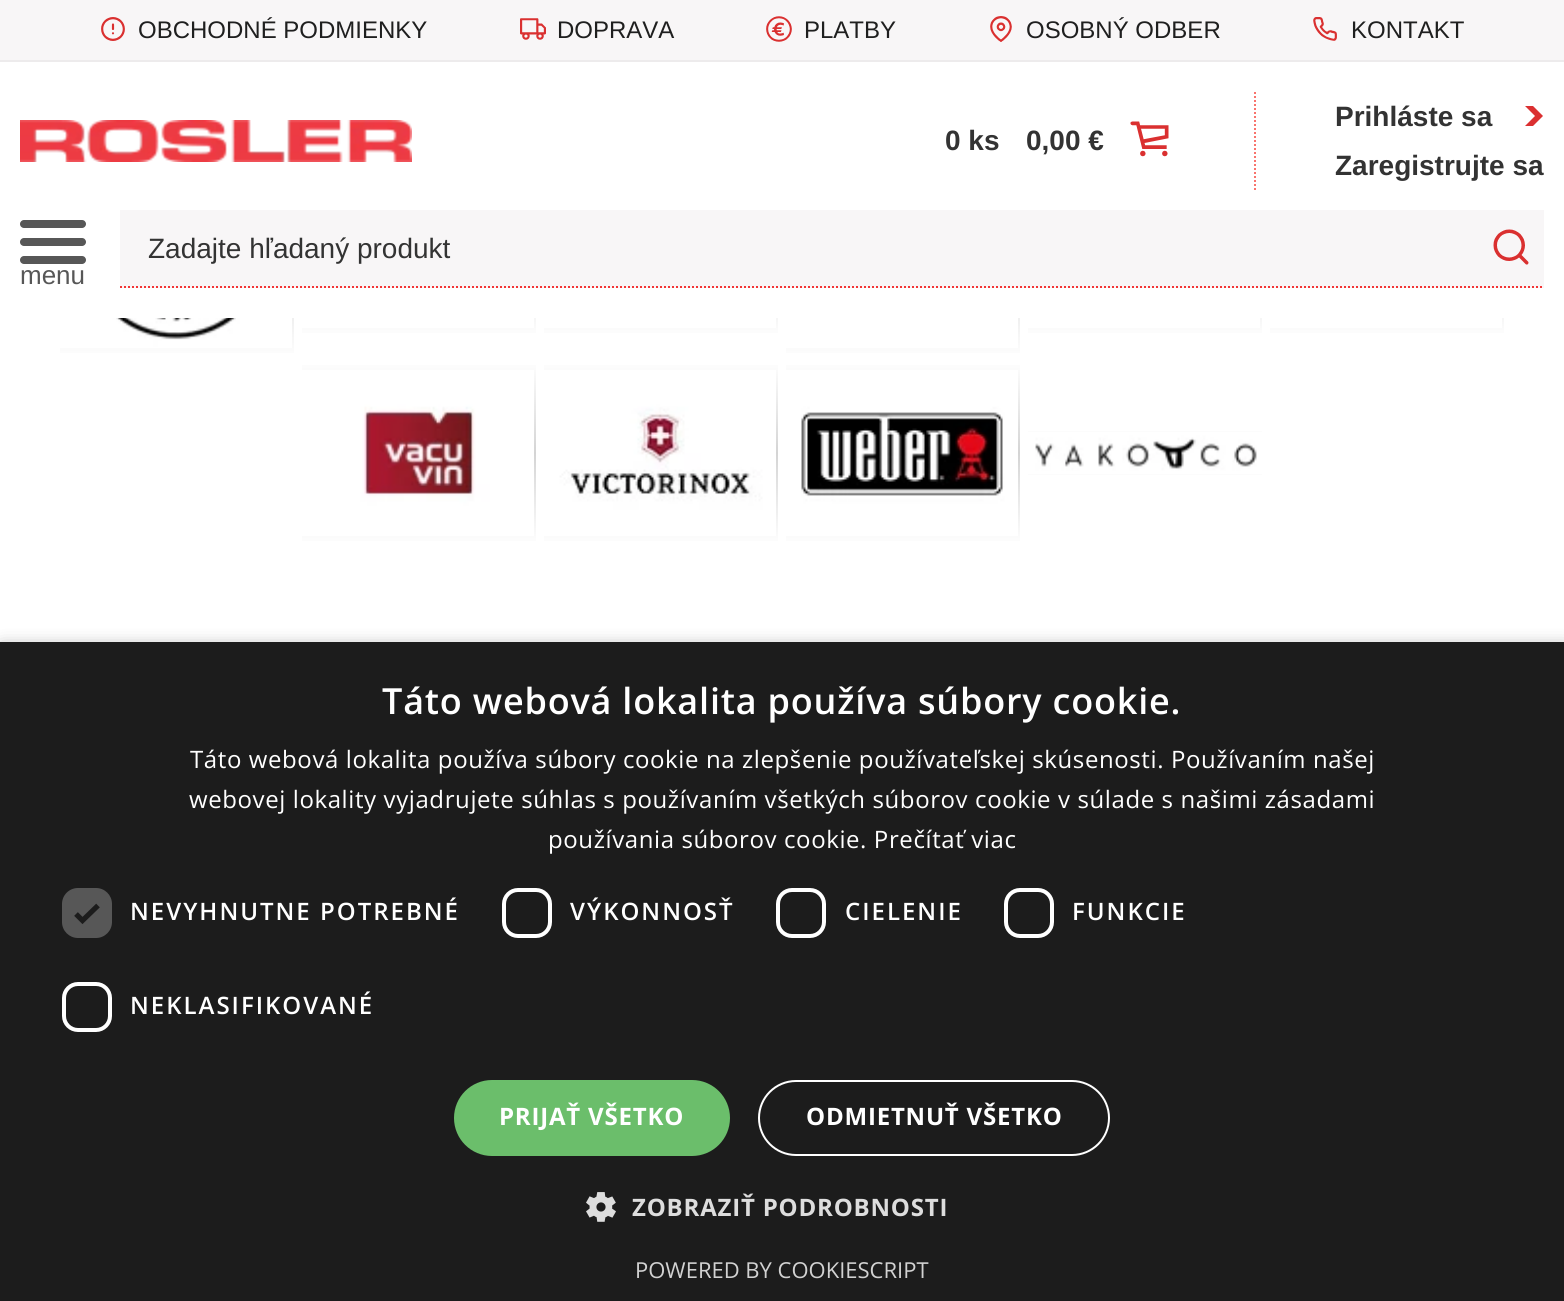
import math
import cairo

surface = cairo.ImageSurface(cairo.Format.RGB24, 1564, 1301)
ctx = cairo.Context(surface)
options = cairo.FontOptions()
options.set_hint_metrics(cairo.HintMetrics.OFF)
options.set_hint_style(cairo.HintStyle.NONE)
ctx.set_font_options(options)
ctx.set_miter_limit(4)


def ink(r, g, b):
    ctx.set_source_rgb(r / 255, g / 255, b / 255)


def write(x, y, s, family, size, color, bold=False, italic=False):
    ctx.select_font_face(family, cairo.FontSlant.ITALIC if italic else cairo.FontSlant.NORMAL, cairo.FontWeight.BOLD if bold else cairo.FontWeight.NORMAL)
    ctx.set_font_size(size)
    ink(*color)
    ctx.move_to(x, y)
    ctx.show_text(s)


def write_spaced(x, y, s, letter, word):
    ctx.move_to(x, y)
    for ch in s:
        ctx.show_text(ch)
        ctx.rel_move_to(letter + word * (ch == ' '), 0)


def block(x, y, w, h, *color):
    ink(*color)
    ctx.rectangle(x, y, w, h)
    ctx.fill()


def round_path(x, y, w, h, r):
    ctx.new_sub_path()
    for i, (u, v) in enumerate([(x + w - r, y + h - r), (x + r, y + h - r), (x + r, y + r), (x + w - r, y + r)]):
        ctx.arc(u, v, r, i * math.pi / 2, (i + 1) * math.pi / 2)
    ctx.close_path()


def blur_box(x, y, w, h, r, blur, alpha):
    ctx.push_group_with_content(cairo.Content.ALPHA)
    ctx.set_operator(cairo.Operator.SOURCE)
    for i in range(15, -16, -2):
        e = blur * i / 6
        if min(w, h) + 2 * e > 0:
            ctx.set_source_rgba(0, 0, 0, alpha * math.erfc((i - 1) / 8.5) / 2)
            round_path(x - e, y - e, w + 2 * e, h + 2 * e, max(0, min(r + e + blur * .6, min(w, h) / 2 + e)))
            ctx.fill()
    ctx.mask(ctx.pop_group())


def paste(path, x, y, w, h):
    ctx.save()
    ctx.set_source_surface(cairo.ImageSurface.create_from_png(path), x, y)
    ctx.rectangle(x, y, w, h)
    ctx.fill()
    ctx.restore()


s1 = dict(family="Liberation Sans", size=24, color=(31, 31, 31))
s2 = dict(family="Liberation Sans", size=28, color=(51, 51, 51), bold=True)
s3 = dict(family="Liberation Sans", size=28, color=(51, 51, 51))
s4 = dict(family="Liberation Sans", size=26, color=(87, 87, 87))
s5 = dict(family="Open Sans", size=22, color=(210, 210, 210))

ink(255, 255, 255)
ctx.paint()
block(0, 0, 1564, 60, 248, 246, 247)
block(0, 60, 1564, 2, 237, 235, 236)
paste("pic1.png", 101, 17, 24, 24)
write(138, 38, "OBCHODNÉ PODMIENKY", **s1)
paste("pic2.png", 520, 18, 26, 22)
write(557, 38, "DOPRAVA", **s1)
paste("pic3.png", 766, 16, 26, 26)
write(804, 38, "PLATBY", **s1)
paste("pic4.png", 990, 16, 22, 26)
write(1026, 38, "OSOBNÝ ODBER", **s1)
paste("pic5.png", 1313, 17, 24, 24)
write(1351, 38, "KONTAKT", **s1)
paste("pic6.png", 20, 120, 392, 42)
write(945, 150, "0 ks", **s2)
write(1026, 150, "0,00 €", **s2)
paste("pic7.png", 1130, 121, 39, 36)
ctx.new_path()
ctx.move_to(1255, 92)
ctx.line_to(1255, 190)
ink(249, 116, 109)
ctx.set_dash([2, 2])
ctx.stroke()
ink(219, 48, 49)
ctx.new_path()
ctx.move_to(1525, 126)
ctx.line_to(1533, 126)
ctx.line_to(1543, 116)
ctx.line_to(1533, 106)
ctx.line_to(1525, 106)
ctx.line_to(1535, 116)
ctx.close_path()
ctx.fill()
write(1335, 126, "Prihláste sa", **s2)
write(1335, 175, "Zaregistrujte sa", **s2)
block(120, 210, 1424, 78, 248, 246, 247)
ctx.new_path()
ctx.move_to(120, 287)
ctx.line_to(1544, 287)
ink(243, 53, 53)
ctx.stroke()
write(148, 258, "Zadajte hľadaný produkt", **s3)
paste("pic8.png", 1493, 229, 36, 36)
ink(87, 87, 87)
round_path(20, 220, 66, 8, 4)
ctx.fill()
round_path(20, 256, 66, 8, 4)
ctx.fill()
round_path(20, 238, 66, 8, 4)
ctx.fill()
write(20, 284, "menu", **s4)
gradient = cairo.LinearGradient(177, 128, 177, 360)
gradient.add_color_stop_rgba(0, 1, 1, 1, 1)
gradient.add_color_stop_rgba(0.5, 0.831, 0.831, 0.831, 1)
gradient.add_color_stop_rgba(1, 1, 1, 1, 1)
ctx.set_source(gradient)
ctx.rectangle(60, 318, 234, 35)
ctx.fill()
paste("pic9.png", 60, 318, 232, 30)
gradient = cairo.LinearGradient(419, 152, 419, 338)
gradient.add_color_stop_rgba(0, 1, 1, 1, 1)
gradient.add_color_stop_rgba(0.5, 0.831, 0.831, 0.831, 1)
gradient.add_color_stop_rgba(1, 1, 1, 1, 1)
ctx.set_source(gradient)
ctx.rectangle(302, 318, 234, 15)
ctx.fill()
paste("pic10.png", 302, 318, 232, 10)
gradient = cairo.LinearGradient(661, 152, 661, 338)
gradient.add_color_stop_rgba(0, 1, 1, 1, 1)
gradient.add_color_stop_rgba(0.5, 0.831, 0.831, 0.831, 1)
gradient.add_color_stop_rgba(1, 1, 1, 1, 1)
ctx.set_source(gradient)
ctx.rectangle(544, 318, 234, 15)
ctx.fill()
paste("pic10.png", 544, 318, 232, 10)
gradient = cairo.LinearGradient(903, 128, 903, 360)
gradient.add_color_stop_rgba(0, 1, 1, 1, 1)
gradient.add_color_stop_rgba(0.5, 0.831, 0.831, 0.831, 1)
gradient.add_color_stop_rgba(1, 1, 1, 1, 1)
ctx.set_source(gradient)
ctx.rectangle(786, 318, 234, 35)
ctx.fill()
paste("pic11.png", 786, 318, 232, 30)
gradient = cairo.LinearGradient(1145, 152, 1145, 338)
gradient.add_color_stop_rgba(0, 1, 1, 1, 1)
gradient.add_color_stop_rgba(0.5, 0.831, 0.831, 0.831, 1)
gradient.add_color_stop_rgba(1, 1, 1, 1, 1)
ctx.set_source(gradient)
ctx.rectangle(1028, 318, 234, 15)
ctx.fill()
paste("pic10.png", 1028, 318, 232, 10)
gradient = cairo.LinearGradient(1387, 152, 1387, 338)
gradient.add_color_stop_rgba(0, 1, 1, 1, 1)
gradient.add_color_stop_rgba(0.5, 0.831, 0.831, 0.831, 1)
gradient.add_color_stop_rgba(1, 1, 1, 1, 1)
ctx.set_source(gradient)
ctx.rectangle(1270, 318, 234, 15)
ctx.fill()
paste("pic10.png", 1270, 318, 232, 10)
gradient = cairo.LinearGradient(419, 360, 419, 546)
gradient.add_color_stop_rgba(0, 1, 1, 1, 1)
gradient.add_color_stop_rgba(0.5, 0.831, 0.831, 0.831, 1)
gradient.add_color_stop_rgba(1, 1, 1, 1, 1)
ctx.set_source(gradient)
ctx.rectangle(302, 365, 234, 176)
ctx.fill()
gradient = cairo.LinearGradient(661, 360, 661, 546)
gradient.add_color_stop_rgba(0, 1, 1, 1, 1)
gradient.add_color_stop_rgba(0.5, 0.831, 0.831, 0.831, 1)
gradient.add_color_stop_rgba(1, 1, 1, 1, 1)
ctx.set_source(gradient)
ctx.rectangle(544, 365, 234, 176)
ctx.fill()
gradient = cairo.LinearGradient(903, 360, 903, 546)
gradient.add_color_stop_rgba(0, 1, 1, 1, 1)
gradient.add_color_stop_rgba(0.5, 0.831, 0.831, 0.831, 1)
gradient.add_color_stop_rgba(1, 1, 1, 1, 1)
ctx.set_source(gradient)
ctx.rectangle(786, 365, 234, 176)
ctx.fill()
paste("pic12.png", 302, 370, 232, 166)
paste("pic13.png", 544, 370, 232, 166)
paste("pic14.png", 786, 370, 232, 166)
gradient = cairo.LinearGradient(1145, 430, 1145, 476)
gradient.add_color_stop_rgba(0, 1, 1, 1, 1)
gradient.add_color_stop_rgba(0.5, 0.831, 0.831, 0.831, 1)
gradient.add_color_stop_rgba(1, 1, 1, 1, 1)
ctx.set_source(gradient)
ctx.rectangle(1028, 431, 234, 44)
ctx.fill()
paste("pic15.png", 1028, 432, 234, 42)
ink(0, 0, 0)
blur_box(2, 646, 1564, 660, 0, 8, 0.35)
block(0, 642, 1564, 659, 28, 28, 28)
ctx.select_font_face("Open Sans SemiBold")
ctx.set_font_size(36)
ink(255, 255, 255)
write_spaced(382, 714, "Táto webová lokalita používa súbory cookie.", 0.8, 0)
ctx.select_font_face("Open Sans")
ctx.set_font_size(24)
write_spaced(190, 768, "Táto webová lokalita používa súbory cookie na zlepšenie používateľskej skúsenosti. Používaním našej", 0.6, 0)
write_spaced(189, 808, "webovej lokality vyjadrujete súhlas s používaním všetkých súborov cookie v súlade s našimi zásadami", 0.6, 0)
write_spaced(548, 848, "používania súborov cookie. Prečítať viac", 0.6, 0)
ink(87, 87, 87)
round_path(62, 888, 50, 50, 16)
ctx.fill()
ctx.new_path()
ctx.move_to(76, 914)
ctx.line_to(82.5, 920.5)
ctx.line_to(98, 905.5)
ink(28, 28, 28)
ctx.set_line_width(5.2)
ctx.set_dash([])
ctx.stroke()
ctx.select_font_face("Open Sans SemiBold")
ink(255, 255, 255)
write_spaced(130, 920, "NEVYHNUTNE POTREBNÉ", 2, 0)
round_path(504, 890, 46, 46, 14)
ctx.set_line_width(4)
ctx.stroke()
write_spaced(570, 920, "VÝKONNOSŤ", 2, 0)
round_path(778, 890, 46, 46, 14)
ctx.stroke()
write_spaced(845, 920, "CIELENIE", 2, 0)
round_path(1006, 890, 46, 46, 14)
ctx.stroke()
write_spaced(1072, 920, "FUNKCIE", 2, 0)
round_path(64, 984, 46, 46, 14)
ctx.stroke()
write_spaced(130, 1014, "NEKLASIFIKOVANÉ", 2, 0)
ink(107, 190, 107)
round_path(454, 1080, 276, 76, 38)
ctx.fill()
ctx.select_font_face("Open Sans", cairo.FontSlant.NORMAL, cairo.FontWeight.BOLD)
ink(255, 255, 255)
write_spaced(499, 1125, "PRIJAŤ VŠETKO", 0.8, 0)
round_path(759, 1081, 350, 74, 37)
ctx.set_line_width(2)
ctx.stroke()
write_spaced(806, 1125, "ODMIETNUŤ VŠETKO", 0.8, 0)
paste("pic16.png", 586, 1192, 30, 30)
ink(221, 221, 221)
write_spaced(632, 1216, "ZOBRAZIŤ PODROBNOSTI", 0.8, 0)
write(635, 1278, "POWERED BY COOKIESCRIPT", **s5)
surface.write_to_png("screenshot.png")
